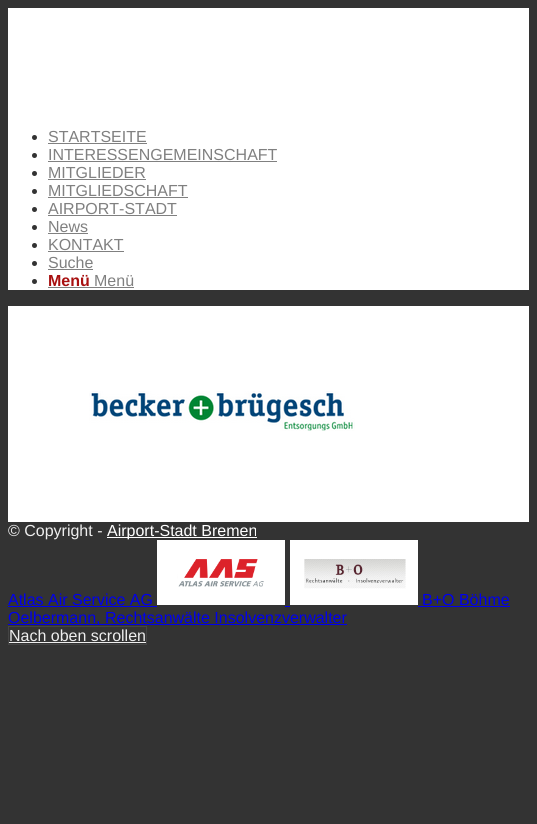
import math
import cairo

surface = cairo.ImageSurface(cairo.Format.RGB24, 537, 824)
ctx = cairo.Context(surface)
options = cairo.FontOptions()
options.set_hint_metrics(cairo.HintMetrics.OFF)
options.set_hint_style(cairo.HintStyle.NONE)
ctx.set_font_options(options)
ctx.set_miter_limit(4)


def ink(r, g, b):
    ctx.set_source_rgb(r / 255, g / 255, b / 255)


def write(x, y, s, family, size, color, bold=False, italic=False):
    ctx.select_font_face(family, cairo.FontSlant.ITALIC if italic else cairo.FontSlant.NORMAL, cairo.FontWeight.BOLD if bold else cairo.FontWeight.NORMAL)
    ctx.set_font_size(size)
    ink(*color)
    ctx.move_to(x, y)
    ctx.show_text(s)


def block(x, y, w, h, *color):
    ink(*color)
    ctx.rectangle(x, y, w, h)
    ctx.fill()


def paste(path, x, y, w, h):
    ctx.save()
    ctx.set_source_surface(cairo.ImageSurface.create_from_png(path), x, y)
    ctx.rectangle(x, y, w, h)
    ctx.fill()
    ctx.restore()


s1 = dict(family="Liberation Sans", size=16, color=(128, 128, 128))
s2 = dict(family="Liberation Sans", size=16, color=(168, 16, 16), bold=True)
s3 = dict(family="Liberation Sans", size=16, color=(238, 238, 238))
s4 = dict(family="Liberation Sans", size=16, color=(255, 255, 255))
s5 = dict(family="Liberation Sans", size=16, color=(0, 0, 238))

ink(51, 51, 51)
ctx.paint()
block(8, 8, 521, 282, 255, 255, 255)
ink(51, 51, 51)
ctx.arc(34.5, 137.5, 2.5, 0, 2 * math.pi)
ctx.fill()
write(48, 142, "STARTSEITE", **s1)
block(48, 143, 99, 1, 128, 128, 128)
ink(51, 51, 51)
ctx.new_path()
ctx.arc(34.5, 155.5, 2.5, 0, 2 * math.pi)
ctx.fill()
write(48, 160, "INTERESSENGEMEINSCHAFT", **s1)
block(48, 161, 229, 1, 128, 128, 128)
ink(51, 51, 51)
ctx.new_path()
ctx.arc(34.5, 173.5, 2.5, 0, 2 * math.pi)
ctx.fill()
write(48, 178, "MITGLIEDER", **s1)
block(48, 179, 98, 1, 128, 128, 128)
ink(51, 51, 51)
ctx.new_path()
ctx.arc(34.5, 191.5, 2.5, 0, 2 * math.pi)
ctx.fill()
write(48, 196, "MITGLIEDSCHAFT", **s1)
block(48, 197, 140, 1, 128, 128, 128)
ink(51, 51, 51)
ctx.new_path()
ctx.arc(34.5, 209.5, 2.5, 0, 2 * math.pi)
ctx.fill()
write(48, 214, "AIRPORT-STADT", **s1)
block(48, 215, 129, 1, 128, 128, 128)
ink(51, 51, 51)
ctx.new_path()
ctx.arc(34.5, 227.5, 2.5, 0, 2 * math.pi)
ctx.fill()
write(48, 232, "News", **s1)
block(48, 233, 40, 1, 128, 128, 128)
ink(51, 51, 51)
ctx.new_path()
ctx.arc(34.5, 245.5, 2.5, 0, 2 * math.pi)
ctx.fill()
write(48, 250, "KONTAKT", **s1)
block(48, 251, 76, 1, 128, 128, 128)
ink(51, 51, 51)
ctx.new_path()
ctx.arc(34.5, 263.5, 2.5, 0, 2 * math.pi)
ctx.fill()
write(48, 268, "Suche", **s1)
block(48, 269, 45, 1, 128, 128, 128)
ink(51, 51, 51)
ctx.new_path()
ctx.arc(34.5, 281.5, 2.5, 0, 2 * math.pi)
ctx.fill()
write(48, 286, "Menü", **s2)
write(94, 286, "Menü", **s1)
block(48, 287, 86, 1, 128, 128, 128)
block(8, 306, 521, 216, 255, 255, 255)
paste("pic1.png", 89, 391, 266, 40)
write(8, 536, "© Copyright -", **s3)
block(107, 537, 150, 1, 255, 255, 255)
write(107, 536, "Airport-Stadt Bremen", **s4)
write(8, 605, "Atlas Air Service AG", **s5)
block(8, 606, 149, 1, 0, 0, 238)
block(285, 606, 5, 1, 0, 0, 238)
paste("pic2.png", 157, 540, 128, 65)
paste("pic3.png", 290, 540, 128, 65)
write(422, 605, "B+O Böhme", **s5)
block(418, 606, 92, 1, 0, 0, 238)
block(8, 624, 339, 1, 0, 0, 238)
write(8, 623, "Oelbermann, Rechtsanwälte Insolvenzverwalter", **s5)
ctx.rectangle(8.5, 626.5, 138, 18)
ink(68, 68, 68)
ctx.set_line_width(1)
ctx.stroke()
write(9, 641, "Nach oben scrollen", **s3)
block(9, 642, 137, 1, 238, 238, 238)
surface.write_to_png("screenshot.png")
